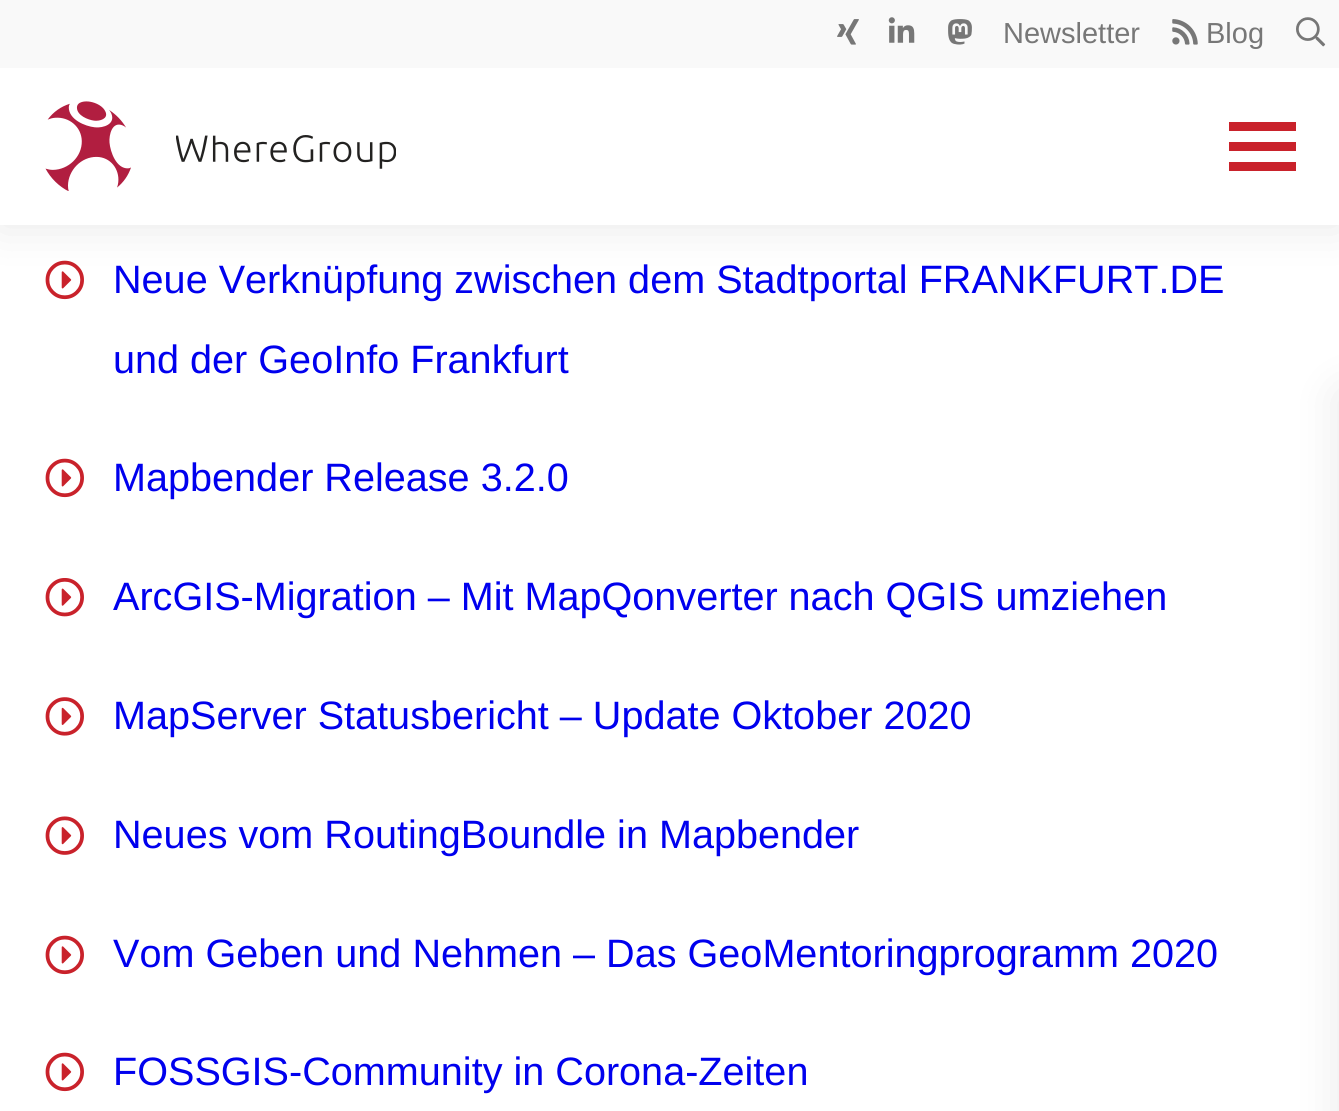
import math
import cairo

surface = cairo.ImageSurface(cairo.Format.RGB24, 1339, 1111)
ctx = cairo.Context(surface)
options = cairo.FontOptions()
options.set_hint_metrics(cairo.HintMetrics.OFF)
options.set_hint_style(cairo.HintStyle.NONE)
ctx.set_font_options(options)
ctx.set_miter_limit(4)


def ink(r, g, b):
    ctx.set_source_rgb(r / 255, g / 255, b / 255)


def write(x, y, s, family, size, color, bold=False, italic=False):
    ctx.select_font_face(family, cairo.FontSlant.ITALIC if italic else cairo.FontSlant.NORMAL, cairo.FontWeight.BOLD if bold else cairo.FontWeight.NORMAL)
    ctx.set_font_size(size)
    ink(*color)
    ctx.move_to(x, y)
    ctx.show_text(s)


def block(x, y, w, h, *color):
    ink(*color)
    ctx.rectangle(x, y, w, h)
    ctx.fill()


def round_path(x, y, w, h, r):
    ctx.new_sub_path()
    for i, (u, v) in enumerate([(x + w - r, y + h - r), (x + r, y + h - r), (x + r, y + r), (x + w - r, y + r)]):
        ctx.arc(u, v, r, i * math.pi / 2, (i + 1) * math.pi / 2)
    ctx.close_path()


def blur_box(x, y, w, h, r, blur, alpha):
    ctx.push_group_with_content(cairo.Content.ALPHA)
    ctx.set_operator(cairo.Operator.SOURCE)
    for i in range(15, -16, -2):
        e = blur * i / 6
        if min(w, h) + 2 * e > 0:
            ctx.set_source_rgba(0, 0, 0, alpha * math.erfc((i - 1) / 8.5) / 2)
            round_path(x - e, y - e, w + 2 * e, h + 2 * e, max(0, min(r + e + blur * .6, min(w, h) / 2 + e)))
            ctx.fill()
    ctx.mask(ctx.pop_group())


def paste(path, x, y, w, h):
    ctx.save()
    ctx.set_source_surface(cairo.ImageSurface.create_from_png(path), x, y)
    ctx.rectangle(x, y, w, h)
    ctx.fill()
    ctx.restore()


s1 = dict(family="Liberation Sans", size=29, color=(119, 119, 119))
s2 = dict(family="Liberation Sans", size=39.6, color=(0, 0, 238))

ink(255, 255, 255)
ctx.paint()
paste("pic8.png", 45, 260, 39, 40)
ink(0, 0, 0)
blur_box(0, 0, 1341, 225, 0, 22.5, 0.1)
block(0, 68, 1339, 157, 255, 255, 255)
block(0, 0, 1339, 68, 249, 249, 249)
paste("pic1.png", 837, 19, 22, 26)
paste("pic2.png", 888, 17, 27, 26)
paste("pic3.png", 948, 19, 24, 26)
write(1003, 43, "Newsletter", **s1)
paste("pic4.png", 1172, 19, 26, 26)
write(1206, 43, "Blog", **s1)
paste("pic5.png", 1296, 17, 30, 30)
paste("pic6.png", 45, 101, 86, 90)
paste("pic7.png", 176, 135, 220, 34)
block(1229, 142, 67, 9, 201, 34, 43)
block(1229, 122, 67, 9, 201, 34, 43)
block(1229, 162, 67, 9, 201, 34, 43)
ink(0, 0, 0)
blur_box(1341, 394, 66, 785, 0, 22.5, 0.1)
write(113, 293, "Neue Verknüpfung zwischen dem Stadtportal FRANKFURT.DE", **s2)
write(113, 373, "und der GeoInfo Frankfurt", **s2)
paste("pic8.png", 45, 458, 39, 40)
write(113, 491, "Mapbender Release 3.2.0", **s2)
paste("pic9.png", 45, 578, 39, 39)
write(113, 610, "ArcGIS-Migration – Mit MapQonverter nach QGIS umziehen", **s2)
paste("pic10.png", 45, 697, 39, 39)
write(113, 729, "MapServer Statusbericht – Update Oktober 2020", **s2)
paste("pic11.png", 45, 816, 39, 39)
write(113, 848, "Neues vom RoutingBoundle in Mapbender", **s2)
paste("pic8.png", 45, 935, 39, 40)
write(113, 967, "Vom Geben und Nehmen – Das GeoMentoringprogramm 2020", **s2)
paste("pic8.png", 45, 1052, 39, 40)
write(113, 1085, "FOSSGIS-Community in Corona-Zeiten", **s2)
surface.write_to_png("screenshot.png")
